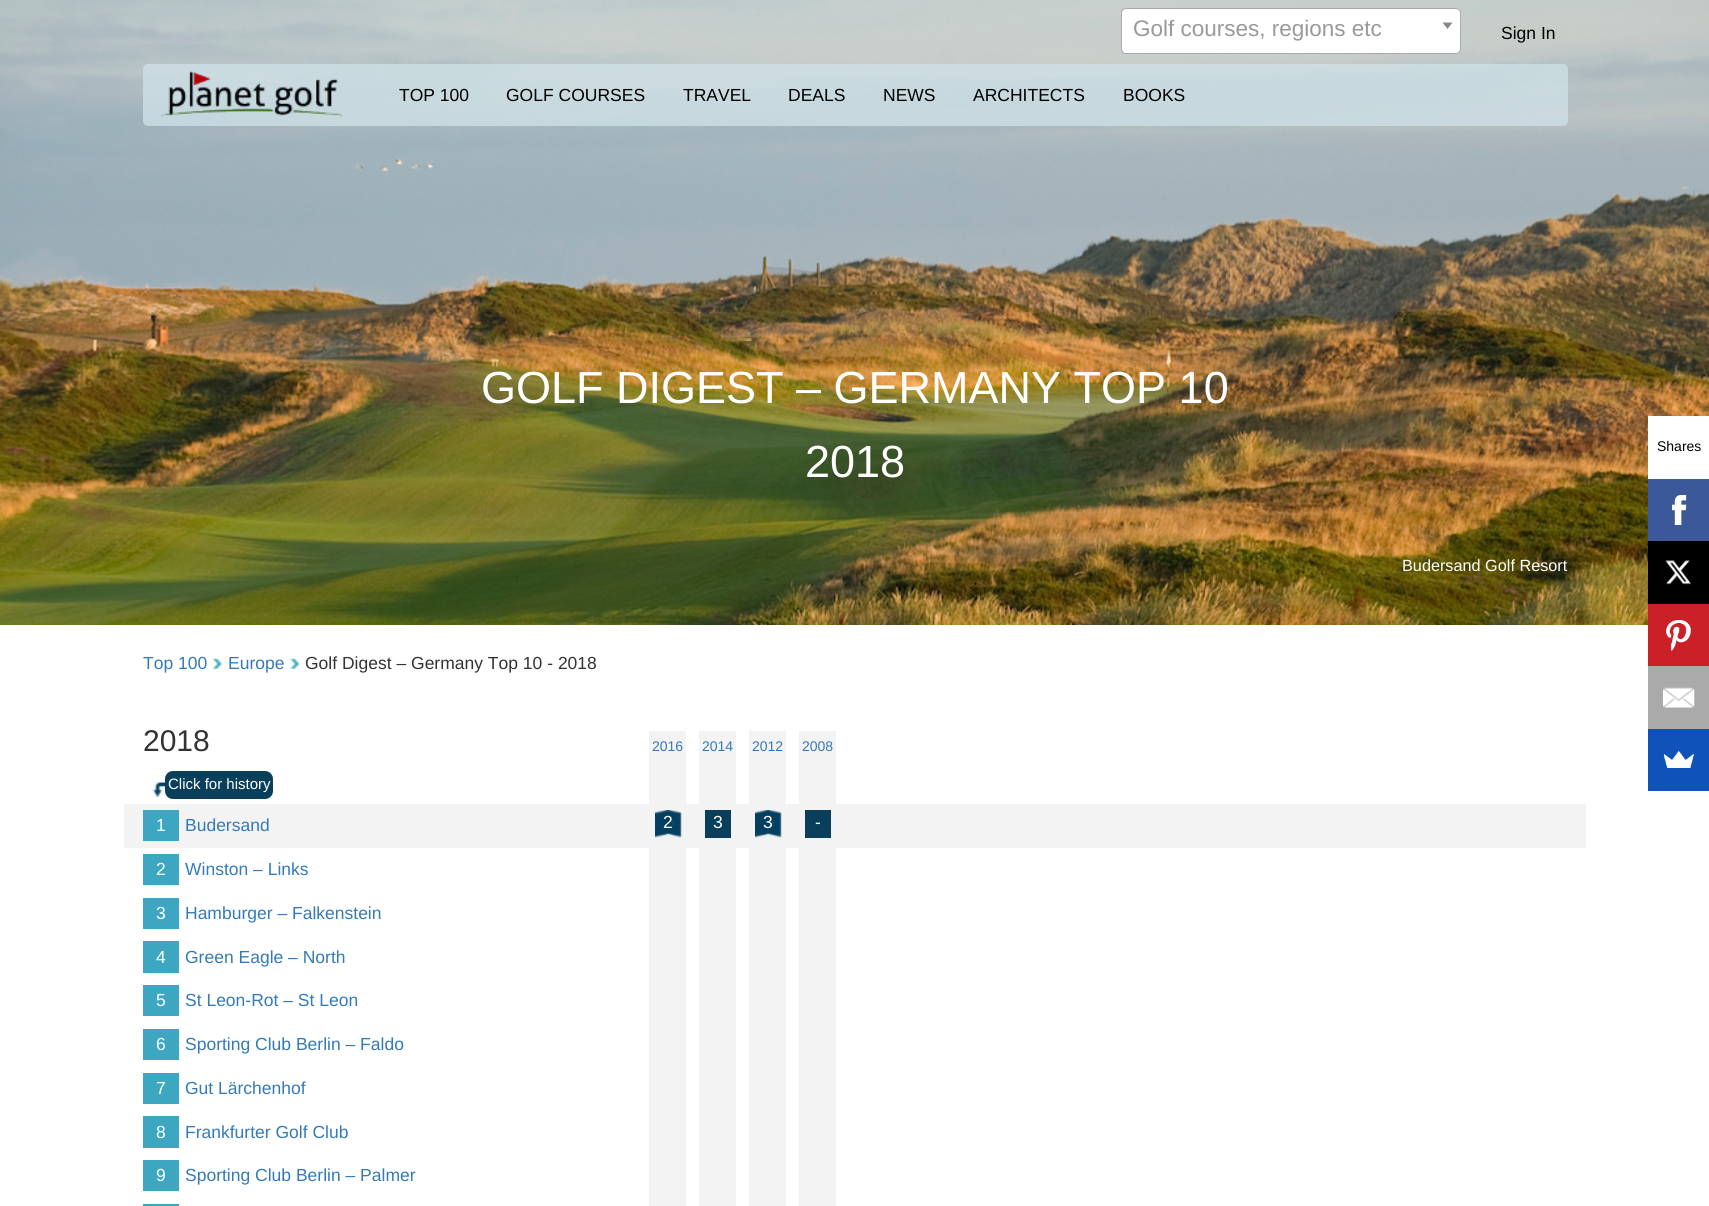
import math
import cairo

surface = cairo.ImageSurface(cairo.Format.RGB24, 1709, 1206)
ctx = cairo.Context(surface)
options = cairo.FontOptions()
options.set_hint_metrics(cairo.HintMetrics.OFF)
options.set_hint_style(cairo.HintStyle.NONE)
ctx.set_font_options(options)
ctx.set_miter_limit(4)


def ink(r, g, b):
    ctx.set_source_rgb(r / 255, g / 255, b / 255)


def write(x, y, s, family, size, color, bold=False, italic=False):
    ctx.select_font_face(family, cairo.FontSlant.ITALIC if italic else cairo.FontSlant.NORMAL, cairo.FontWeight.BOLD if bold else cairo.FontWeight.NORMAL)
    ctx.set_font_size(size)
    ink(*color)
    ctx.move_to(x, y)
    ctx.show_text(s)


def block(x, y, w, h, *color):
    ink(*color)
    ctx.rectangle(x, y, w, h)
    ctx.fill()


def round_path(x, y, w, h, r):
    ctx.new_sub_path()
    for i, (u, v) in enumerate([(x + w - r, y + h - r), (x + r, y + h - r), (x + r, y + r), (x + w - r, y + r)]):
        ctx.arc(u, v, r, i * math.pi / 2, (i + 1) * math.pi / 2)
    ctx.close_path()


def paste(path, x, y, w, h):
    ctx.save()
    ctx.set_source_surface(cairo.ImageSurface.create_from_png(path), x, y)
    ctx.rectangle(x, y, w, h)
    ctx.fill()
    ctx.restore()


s1 = dict(family="Liberation Sans", size=22.5, color=(153, 153, 153))
s2 = dict(family="Liberation Sans", size=17.5, color=(0, 0, 0))
s3 = dict(family="Liberation Sans", size=45, color=(255, 255, 255))
s4 = dict(family="Liberation Sans", size=16.25, color=(255, 255, 255))
s5 = dict(family="Liberation Sans", size=17.5, color=(51, 122, 183))
s6 = dict(family="Liberation Sans", size=17.5, color=(51, 51, 51))
s7 = dict(family="Liberation Sans", size=30, color=(51, 51, 51))
s8 = dict(family="Liberation Sans", size=14, color=(51, 122, 183))
s9 = dict(family="Liberation Sans", size=15, color=(255, 255, 255))
s10 = dict(family="Liberation Sans", size=17.5, color=(255, 255, 255))
s11 = dict(family="Liberation Sans", size=14, color=(0, 0, 0))

ink(255, 255, 255)
ctx.paint()
paste("pic1.png", 0, 0, 1709, 625)
ink(255, 255, 255)
round_path(1121.5, 8.5, 339, 45, 4.5)
ctx.fill_preserve()
ink(170, 170, 170)
ctx.set_line_width(1)
ctx.stroke()
write(1133, 36, "Golf courses, regions etc", **s1)
ink(136, 136, 136)
ctx.new_path()
ctx.move_to(1442.5, 22.5)
ctx.line_to(1452.5, 22.5)
ctx.line_to(1447.5, 29)
ctx.close_path()
ctx.fill()
write(1501, 39, "Sign In", **s2)
ctx.set_source_rgba(0.808, 0.875, 0.902, 0.8)
round_path(143, 64, 1425, 62, 5)
ctx.fill()
paste("pic2.png", 161, 71, 182, 46)
write(399, 101, "TOP 100", **s2)
write(506, 101, "GOLF COURSES", **s2)
write(683, 101, "TRAVEL", **s2)
write(788, 101, "DEALS", **s2)
write(883, 101, "NEWS", **s2)
write(973, 101, "ARCHITECTS", **s2)
write(1123, 101, "BOOKS", **s2)
write(481, 403, "GOLF DIGEST – GERMANY TOP 10", **s3)
write(805, 477, "2018", **s3)
write(1402, 571, "Budersand Golf Resort", **s4)
write(143, 669, "Top 100", **s5)
paste("pic3.png", 211, 658, 12, 11)
write(228, 669, "Europe", **s5)
paste("pic4.png", 289, 658, 11, 11)
write(305, 669, "Golf Digest – Germany Top 10 - 2018", **s6)
write(143, 751, "2018", **s7)
block(649, 731, 37, 73, 243, 243, 243)
write(652, 751, "2016", **s8)
block(699, 731, 37, 73, 243, 243, 243)
write(702, 751, "2014", **s8)
block(749, 731, 37, 73, 243, 243, 243)
write(752, 751, "2012", **s8)
block(799, 731, 37, 73, 243, 243, 243)
write(802, 751, "2008", **s8)
paste("pic5.png", 152, 780, 13, 18)
ink(10, 63, 92)
round_path(165, 771, 108, 28, 8)
ctx.fill()
write(168, 789, "Click for history", **s9)
block(124, 804, 1462, 44, 243, 243, 243)
block(143, 810, 36, 31, 61, 167, 193)
write(156, 831, "1", **s10)
write(185, 831, "Budersand", **s5)
paste("pic6.png", 655, 810, 27, 28)
write(663, 828, "2", **s10)
block(705, 810, 26, 28, 10, 63, 92)
write(713, 828, "3", **s10)
paste("pic7.png", 755, 810, 27, 28)
write(763, 828, "3", **s10)
block(805, 810, 26, 28, 10, 63, 92)
write(815, 828, "-", **s10)
block(143, 854, 36, 31, 61, 167, 193)
write(156, 875, "2", **s10)
write(185, 875, "Winston – Links", **s5)
block(649, 848, 37, 358, 243, 243, 243)
block(699, 848, 37, 358, 243, 243, 243)
block(749, 848, 37, 358, 243, 243, 243)
block(799, 848, 37, 358, 243, 243, 243)
block(143, 898, 36, 31, 61, 167, 193)
write(156, 919, "3", **s10)
write(185, 919, "Hamburger – Falkenstein", **s5)
block(143, 941, 36, 32, 61, 167, 193)
write(156, 963, "4", **s10)
write(185, 963, "Green Eagle – North", **s5)
block(143, 985, 36, 31, 61, 167, 193)
write(156, 1006, "5", **s10)
write(185, 1006, "St Leon-Rot – St Leon", **s5)
block(143, 1029, 36, 31, 61, 167, 193)
write(156, 1050, "6", **s10)
write(185, 1050, "Sporting Club Berlin – Faldo", **s5)
block(143, 1073, 36, 31, 61, 167, 193)
write(156, 1094, "7", **s10)
write(185, 1094, "Gut Lärchenhof", **s5)
block(143, 1116, 36, 32, 61, 167, 193)
write(156, 1138, "8", **s10)
write(185, 1138, "Frankfurter Golf Club", **s5)
block(143, 1160, 36, 31, 61, 167, 193)
write(156, 1181, "9", **s10)
write(185, 1181, "Sporting Club Berlin – Palmer", **s5)
block(143, 1204, 36, 2, 61, 167, 193)
block(1648, 416, 61, 63, 255, 255, 255)
write(1657, 451, "Shares", **s11)
block(1648, 479, 61, 62, 59, 89, 152)
paste("pic8.png", 1672, 495, 15, 30)
block(1648, 541, 61, 63, 0, 0, 0)
paste("pic9.png", 1665, 560, 26, 25)
block(1648, 604, 61, 62, 203, 32, 39)
paste("pic10.png", 1666, 620, 25, 31)
block(1648, 666, 61, 63, 170, 170, 170)
paste("pic11.png", 1663, 687, 32, 21)
block(1648, 729, 61, 62, 15, 82, 186)
paste("pic12.png", 1663, 751, 31, 17)
surface.write_to_png("screenshot.png")
